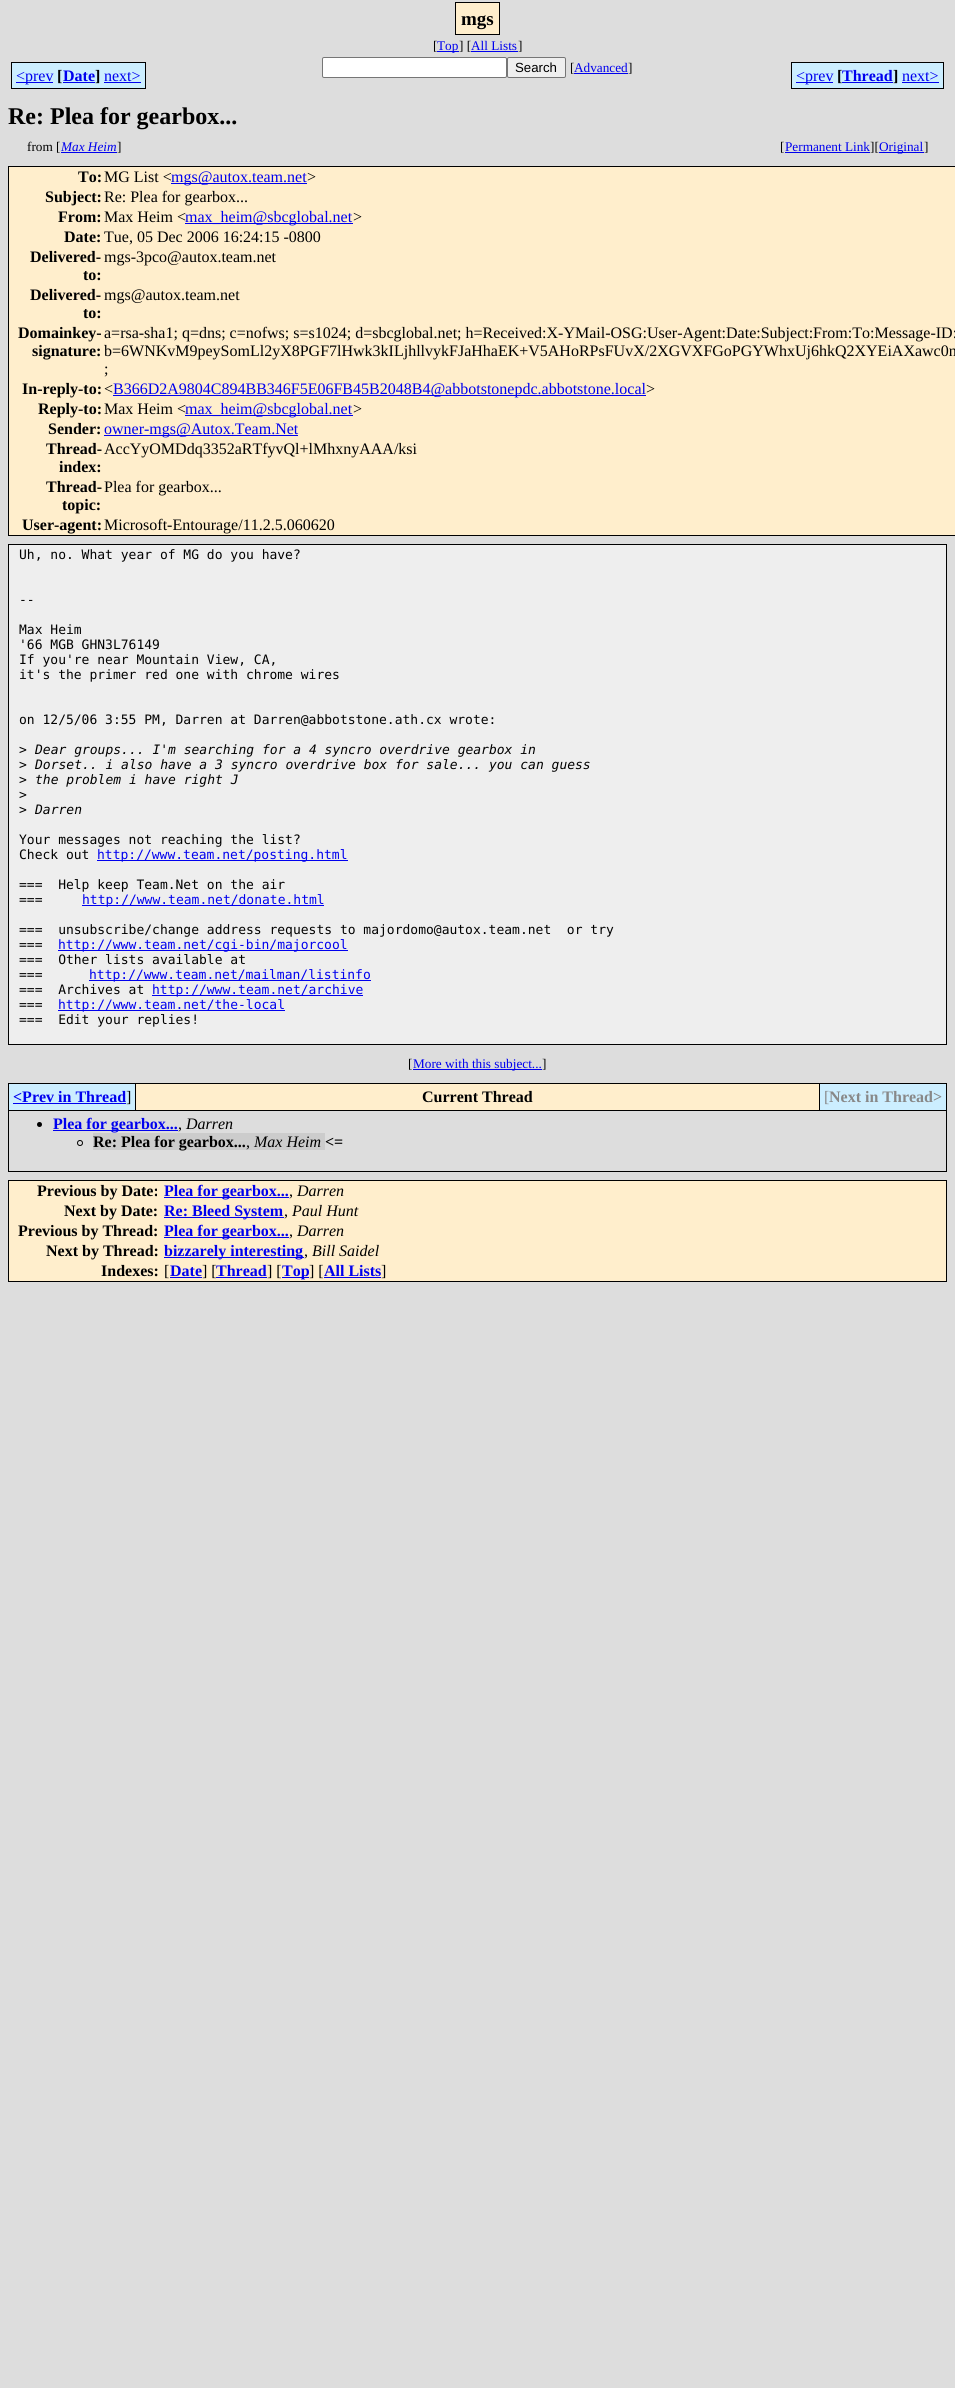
import math
import cairo

surface = cairo.ImageSurface(cairo.Format.RGB24, 955, 2388)
ctx = cairo.Context(surface)
options = cairo.FontOptions()
options.set_hint_metrics(cairo.HintMetrics.OFF)
options.set_hint_style(cairo.HintStyle.NONE)
ctx.set_font_options(options)
ctx.set_miter_limit(4)


def ink(r, g, b):
    ctx.set_source_rgb(r / 255, g / 255, b / 255)


def write(x, y, s, family, size, color, bold=False, italic=False):
    ctx.select_font_face(family, cairo.FontSlant.ITALIC if italic else cairo.FontSlant.NORMAL, cairo.FontWeight.BOLD if bold else cairo.FontWeight.NORMAL)
    ctx.set_font_size(size)
    ink(*color)
    ctx.move_to(x, y)
    ctx.show_text(s)


def block(x, y, w, h, *color):
    ink(*color)
    ctx.rectangle(x, y, w, h)
    ctx.fill()


def round_path(x, y, w, h, r):
    ctx.new_sub_path()
    for i, (u, v) in enumerate([(x + w - r, y + h - r), (x + r, y + h - r), (x + r, y + r), (x + w - r, y + r)]):
        ctx.arc(u, v, r, i * math.pi / 2, (i + 1) * math.pi / 2)
    ctx.close_path()


s1 = dict(family="Liberation Serif", size=19, color=(0, 0, 0), bold=True)
s2 = dict(family="Liberation Serif", size=13.25, color=(0, 0, 0))
s3 = dict(family="Liberation Serif", size=13.25, color=(0, 0, 238))
s4 = dict(family="Liberation Serif", size=16, color=(0, 0, 238))
s5 = dict(family="Liberation Serif", size=16, color=(0, 0, 0), bold=True)
s6 = dict(family="Liberation Serif", size=16, color=(0, 0, 238), bold=True)
s7 = dict(family="Liberation Sans", size=13.25, color=(0, 0, 0))
s8 = dict(family="Liberation Serif", size=24, color=(0, 0, 0), bold=True)
s9 = dict(family="Liberation Serif", size=13.25, color=(0, 0, 238), italic=True)
s10 = dict(family="Liberation Serif", size=16, color=(0, 0, 0))
s11 = dict(family="DejaVu Sans Mono", size=13, color=(0, 0, 0))
s12 = dict(family="DejaVu Sans Mono", size=13, color=(0, 0, 0), italic=True)
s13 = dict(family="DejaVu Sans Mono", size=13, color=(0, 0, 238))
s14 = dict(family="Liberation Serif", size=16, color=(136, 136, 136))
s15 = dict(family="Liberation Serif", size=16, color=(136, 136, 136), bold=True)
s16 = dict(family="Liberation Serif", size=16, color=(0, 0, 0), italic=True)

ink(221, 221, 221)
ctx.paint()
ink(255, 238, 204)
ctx.rectangle(455.5, 2.5, 44, 32)
ctx.fill_preserve()
ink(0, 0, 0)
ctx.set_line_width(1)
ctx.stroke()
write(461, 25, "mgs", **s1)
write(433, 50, "[", **s2)
block(437, 51, 22, 1, 0, 0, 238)
write(437, 50, "Top", **s3)
write(459, 50, "] [", **s2)
write(471, 50, "All Lists", **s3)
write(518, 50, "]", **s2)
block(471, 51, 47, 1, 0, 0, 238)
block(12, 63, 41, 25, 204, 238, 255)
block(16, 82, 37, 1, 0, 0, 238)
block(53, 62, 10, 27, 204, 238, 255)
write(16, 81, "<prev", **s4)
block(11, 62, 42, 1, 0, 0, 0)
block(11, 88, 42, 1, 0, 0, 0)
block(11, 62, 1, 27, 0, 0, 0)
block(53, 88, 42, 1, 0, 0, 0)
write(57, 81, "[", **s5)
block(63, 63, 32, 25, 204, 238, 255)
block(63, 82, 32, 1, 0, 0, 238)
write(63, 81, "Date", **s6)
block(53, 62, 42, 1, 0, 0, 0)
block(95, 62, 9, 27, 204, 238, 255)
block(95, 62, 51, 1, 0, 0, 0)
write(95, 81, "]", **s5)
block(95, 88, 9, 1, 0, 0, 0)
block(104, 63, 41, 25, 204, 238, 255)
write(104, 81, "next>", **s4)
block(145, 62, 1, 27, 0, 0, 0)
block(104, 88, 42, 1, 0, 0, 0)
block(104, 82, 37, 1, 0, 0, 238)
ink(255, 255, 255)
round_path(322.5, 57.5, 184, 20, 1.5)
ctx.fill_preserve()
ink(118, 118, 118)
ctx.stroke()
ink(239, 239, 239)
round_path(507.5, 57.5, 58, 20, 1.5)
ctx.fill_preserve()
ink(118, 118, 118)
ctx.stroke()
write(515, 72, "Search", **s7)
write(570, 72, "[", **s2)
block(574, 73, 54, 1, 0, 0, 238)
write(574, 72, "Advanced", **s3)
write(628, 72, "]", **s2)
block(792, 63, 41, 25, 204, 238, 255)
block(796, 82, 37, 1, 0, 0, 238)
block(833, 62, 9, 27, 204, 238, 255)
write(796, 81, "<prev", **s4)
block(791, 62, 42, 1, 0, 0, 0)
block(791, 88, 42, 1, 0, 0, 0)
block(791, 62, 1, 27, 0, 0, 0)
block(833, 88, 60, 1, 0, 0, 0)
write(837, 81, "[", **s5)
block(842, 63, 51, 25, 204, 238, 255)
block(842, 82, 51, 1, 0, 0, 238)
write(842, 81, "Thread", **s6)
block(833, 62, 60, 1, 0, 0, 0)
block(893, 62, 9, 27, 204, 238, 255)
block(893, 62, 51, 1, 0, 0, 0)
write(893, 81, "]", **s5)
block(893, 88, 9, 1, 0, 0, 0)
block(902, 63, 41, 25, 204, 238, 255)
write(902, 81, "next>", **s4)
block(943, 62, 1, 27, 0, 0, 0)
block(902, 88, 42, 1, 0, 0, 0)
block(902, 82, 37, 1, 0, 0, 238)
write(8, 124, "Re: Plea for gearbox...", **s8)
write(27, 151, "from [", **s2)
block(61, 152, 56, 1, 0, 0, 238)
write(61, 151, "Max Heim", **s9)
write(117, 151, "]", **s2)
write(780, 151, "[", **s2)
block(785, 152, 85, 1, 0, 0, 238)
write(785, 151, "Permanent Link", **s3)
write(870, 151, "][", **s2)
block(879, 152, 45, 1, 0, 0, 238)
write(879, 151, "Original", **s3)
write(924, 151, "]", **s2)
ink(255, 238, 204)
ctx.rectangle(8.5, 166.5, 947, 369)
ctx.fill_preserve()
ink(0, 0, 0)
ctx.stroke()
write(78, 182, "To:", **s5)
write(104, 182, "MG List <", **s10)
block(171, 183, 136, 1, 0, 0, 238)
write(171, 182, "mgs@autox.team.net", **s4)
write(307, 182, ">", **s10)
write(45, 202, "Subject:", **s5)
write(104, 202, "Re: Plea for gearbox...", **s10)
write(58, 222, "From:", **s5)
write(104, 222, "Max Heim <", **s10)
block(185, 223, 168, 1, 0, 0, 238)
write(185, 222, "max_heim@sbcglobal.net", **s4)
write(353, 222, ">", **s10)
write(64, 242, "Date:", **s5)
write(104, 242, "Tue, 05 Dec 2006 16:24:15 -0800", **s10)
write(30, 262, "Delivered-", **s5)
write(83, 280, "to:", **s5)
write(104, 262, "mgs-3pco@autox.team.net", **s10)
write(30, 300, "Delivered-", **s5)
write(83, 318, "to:", **s5)
write(104, 300, "mgs@autox.team.net", **s10)
write(18, 338, "Domainkey-", **s5)
write(32, 356, "signature:", **s5)
write(104, 338, "a=rsa-sha1; q=dns; c=nofws; s=s1024; d=sbcglobal.net; h=Received:X-YMail-OSG:User-Agent:Date:Subject:From:To:Message-ID:", **s10)
write(104, 356, "b=6WNKvM9peySomLl2yX8PGF7lHwk3kILjhllvykFJaHhaEK+V5AHoRPsFUvX/2XGVXFGoPGYWhxUj6hkQ2XYEiAXawc0n", **s10)
write(104, 374, ";", **s10)
write(22, 394, "In-reply-to:", **s5)
write(104, 394, "<", **s10)
block(113, 395, 533, 1, 0, 0, 238)
write(113, 394, "B366D2A9804C894BB346F5E06FB45B2048B4@abbotstonepdc.abbotstone.local", **s4)
write(646, 394, ">", **s10)
write(38, 414, "Reply-to:", **s5)
write(104, 414, "Max Heim <", **s10)
block(185, 415, 168, 1, 0, 0, 238)
write(185, 414, "max_heim@sbcglobal.net", **s4)
write(353, 414, ">", **s10)
write(48, 434, "Sender:", **s5)
block(104, 435, 194, 1, 0, 0, 238)
write(104, 434, "owner-mgs@Autox.Team.Net", **s4)
write(46, 454, "Thread-", **s5)
write(59, 472, "index:", **s5)
write(104, 454, "AccYyOMDdq3352aRTfyvQl+lMhxnyAAA/ksi", **s10)
write(46, 492, "Thread-", **s5)
write(62, 510, "topic:", **s5)
write(104, 492, "Plea for gearbox...", **s10)
write(22, 530, "User-agent:", **s5)
write(104, 530, "Microsoft-Entourage/11.2.5.060620", **s10)
ink(238, 238, 238)
ctx.rectangle(8.5, 544.5, 938, 500)
ctx.fill_preserve()
ink(0, 0, 0)
ctx.stroke()
write(19, 559, "Uh, no. What year of MG do you have?", **s11)
write(19, 604, "--", **s11)
write(19, 634, "Max Heim", **s11)
write(19, 649, "'66 MGB GHN3L76149", **s11)
write(19, 664, "If you're near Mountain View, CA,", **s11)
write(19, 679, "it's the primer red one with chrome wires", **s11)
write(19, 724, "on 12/5/06 3:55 PM, Darren at Darren@abbotstone.ath.cx wrote:", **s11)
write(19, 754, ">", **s11)
write(35, 754, "Dear groups... I'm searching for a 4 syncro overdrive gearbox in", **s12)
write(19, 769, ">", **s11)
write(35, 769, "Dorset.. i also have a 3 syncro overdrive box for sale... you can guess", **s12)
write(19, 784, ">", **s11)
write(35, 784, "the problem i have right J", **s12)
write(19, 799, ">", **s11)
write(19, 814, ">", **s11)
write(35, 814, "Darren", **s12)
write(19, 844, "Your messages not reaching the list?", **s11)
write(19, 859, "Check out", **s11)
block(97, 860, 251, 1, 0, 0, 238)
write(97, 859, "http://www.team.net/posting.html", **s13)
write(19, 889, "===  Help keep Team.Net on the air", **s11)
write(19, 904, "===", **s11)
block(82, 905, 242, 1, 0, 0, 238)
write(82, 904, "http://www.team.net/donate.html", **s13)
write(19, 934, "===  unsubscribe/change address requests to majordomo@autox.team.net  or try", **s11)
write(19, 949, "===", **s11)
block(58, 950, 290, 1, 0, 0, 238)
write(58, 949, "http://www.team.net/cgi-bin/majorcool", **s13)
write(19, 964, "===  Other lists available at", **s11)
write(19, 979, "===", **s11)
block(89, 980, 282, 1, 0, 0, 238)
write(89, 979, "http://www.team.net/mailman/listinfo", **s13)
write(19, 994, "===  Archives at", **s11)
block(152, 995, 211, 1, 0, 0, 238)
write(152, 994, "http://www.team.net/archive", **s13)
write(19, 1009, "===", **s11)
block(58, 1010, 227, 1, 0, 0, 238)
write(58, 1009, "http://www.team.net/the-local", **s13)
write(19, 1024, "===  Edit your replies!", **s11)
write(408, 1068, "[", **s2)
block(413, 1069, 129, 1, 0, 0, 238)
write(413, 1068, "More with this subject...", **s3)
write(542, 1068, "]", **s2)
block(8, 1083, 939, 89, 0, 0, 0)
block(9, 1084, 126, 26, 204, 238, 255)
write(13, 1102, "<Prev in Thread", **s6)
block(13, 1103, 113, 1, 0, 0, 238)
write(126, 1102, "]", **s10)
block(136, 1084, 683, 26, 255, 238, 204)
write(422, 1102, "Current Thread", **s5)
block(820, 1084, 126, 26, 204, 238, 255)
write(824, 1102, "[", **s14)
write(829, 1102, "Next in Thread>", **s15)
block(9, 1111, 937, 60, 221, 221, 221)
ink(0, 0, 0)
ctx.new_path()
ctx.arc(39.5, 1124.5, 2.5, 0, 2 * math.pi)
ctx.fill()
block(53, 1130, 125, 1, 0, 0, 238)
write(53, 1129, "Plea for gearbox...", **s6)
write(186, 1129, "Darren", **s16)
write(178, 1129, ",", **s10)
ctx.new_path()
ctx.arc(80, 1143, 2.5, 0, 2 * math.pi)
ctx.stroke()
block(93, 1133, 232, 17, 204, 204, 204)
write(93, 1147, "Re: Plea for gearbox...", **s5)
write(254, 1147, "Max Heim", **s16)
write(325, 1147, "<=", **s5)
write(246, 1147, ",", **s10)
ink(255, 238, 204)
ctx.rectangle(8.5, 1180.5, 938, 101)
ctx.fill_preserve()
ink(0, 0, 0)
ctx.stroke()
write(37, 1196, "Previous by Date:", **s5)
block(164, 1197, 125, 1, 0, 0, 238)
write(164, 1196, "Plea for gearbox...", **s6)
write(289, 1196, ",", **s10)
write(297, 1196, "Darren", **s16)
write(64, 1216, "Next by Date:", **s5)
block(164, 1217, 120, 1, 0, 0, 238)
write(164, 1216, "Re: Bleed System", **s6)
write(284, 1216, ",", **s10)
write(292, 1216, "Paul Hunt", **s16)
write(18, 1236, "Previous by Thread:", **s5)
block(164, 1237, 125, 1, 0, 0, 238)
write(164, 1236, "Plea for gearbox...", **s6)
write(289, 1236, ",", **s10)
write(297, 1236, "Darren", **s16)
write(46, 1256, "Next by Thread:", **s5)
block(164, 1257, 140, 1, 0, 0, 238)
write(164, 1256, "bizzarely interesting", **s6)
write(304, 1256, ",", **s10)
write(312, 1256, "Bill Saidel", **s16)
write(101, 1276, "Indexes:", **s5)
write(164, 1276, "[", **s10)
write(170, 1276, "Date", **s6)
block(170, 1277, 32, 1, 0, 0, 238)
write(202, 1276, "] [", **s10)
write(216, 1276, "Thread", **s6)
block(216, 1277, 51, 1, 0, 0, 238)
write(267, 1276, "] [", **s10)
block(282, 1277, 27, 1, 0, 0, 238)
write(282, 1276, "Top", **s6)
write(309, 1276, "] [", **s10)
write(324, 1276, "All Lists", **s6)
block(324, 1277, 57, 1, 0, 0, 238)
write(381, 1276, "]", **s10)
surface.write_to_png("screenshot.png")
